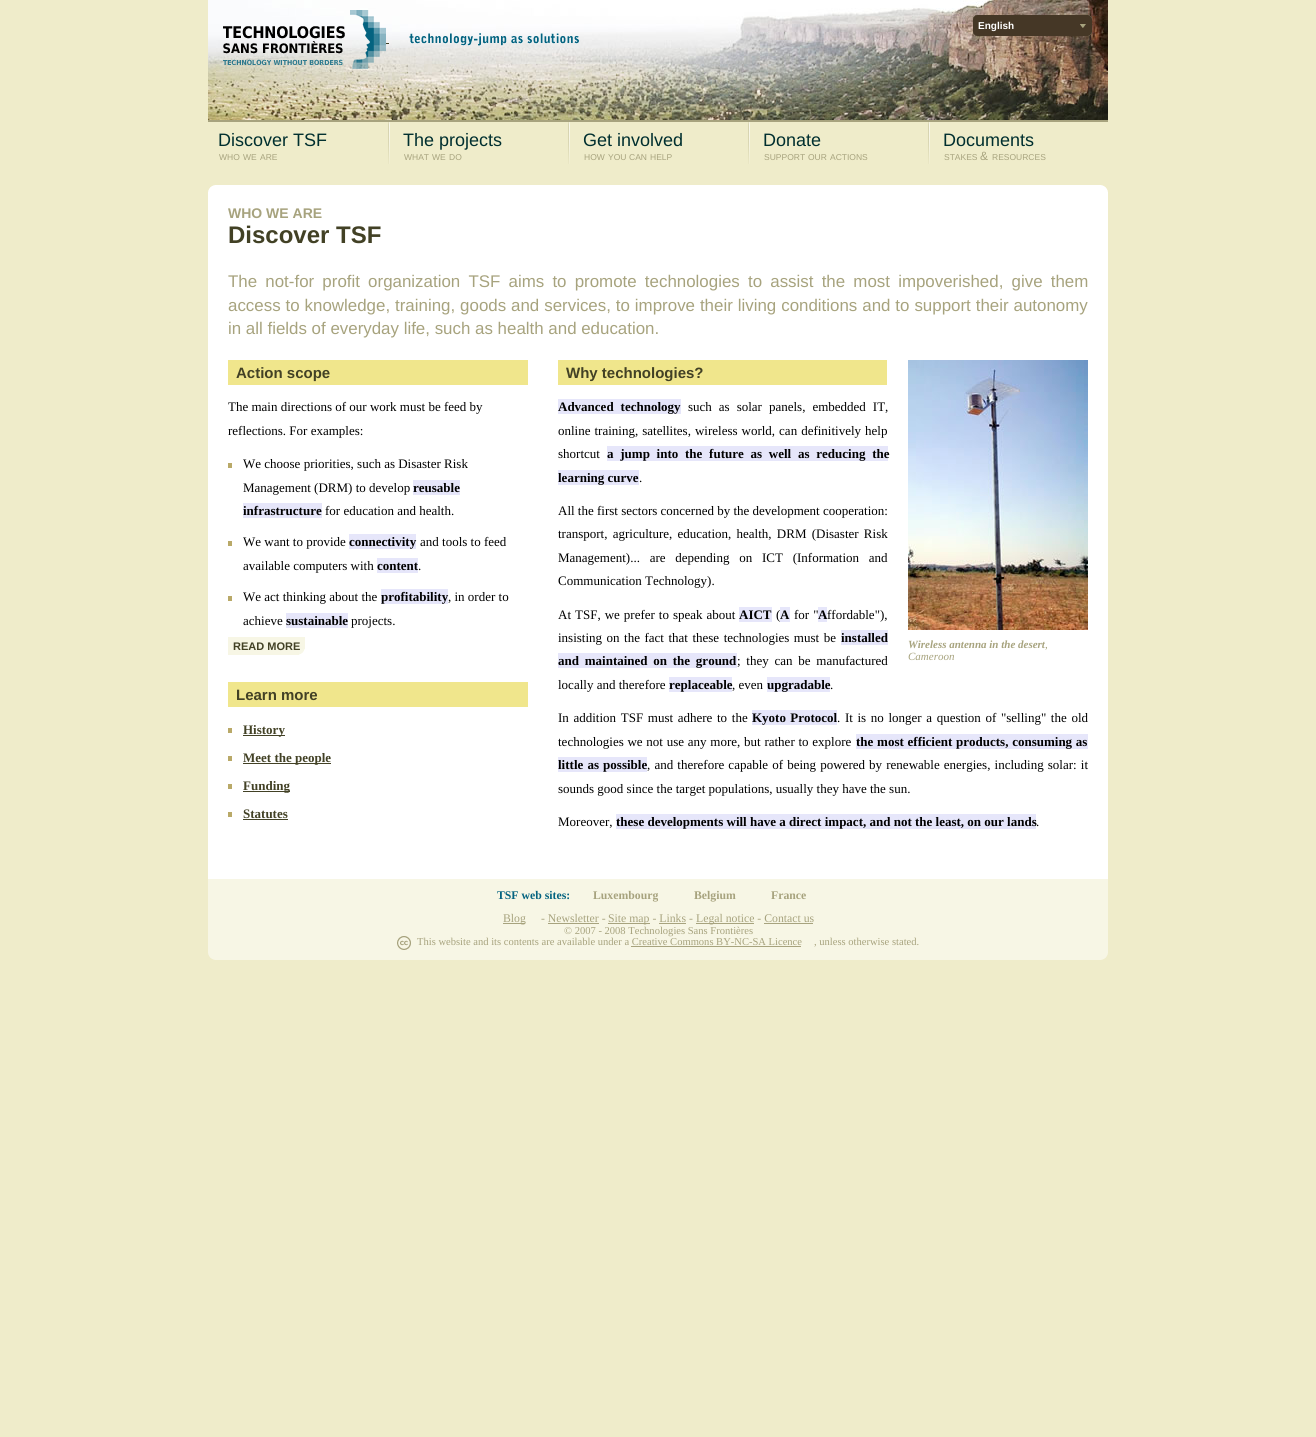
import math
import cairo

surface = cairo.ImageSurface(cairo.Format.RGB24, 1316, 1437)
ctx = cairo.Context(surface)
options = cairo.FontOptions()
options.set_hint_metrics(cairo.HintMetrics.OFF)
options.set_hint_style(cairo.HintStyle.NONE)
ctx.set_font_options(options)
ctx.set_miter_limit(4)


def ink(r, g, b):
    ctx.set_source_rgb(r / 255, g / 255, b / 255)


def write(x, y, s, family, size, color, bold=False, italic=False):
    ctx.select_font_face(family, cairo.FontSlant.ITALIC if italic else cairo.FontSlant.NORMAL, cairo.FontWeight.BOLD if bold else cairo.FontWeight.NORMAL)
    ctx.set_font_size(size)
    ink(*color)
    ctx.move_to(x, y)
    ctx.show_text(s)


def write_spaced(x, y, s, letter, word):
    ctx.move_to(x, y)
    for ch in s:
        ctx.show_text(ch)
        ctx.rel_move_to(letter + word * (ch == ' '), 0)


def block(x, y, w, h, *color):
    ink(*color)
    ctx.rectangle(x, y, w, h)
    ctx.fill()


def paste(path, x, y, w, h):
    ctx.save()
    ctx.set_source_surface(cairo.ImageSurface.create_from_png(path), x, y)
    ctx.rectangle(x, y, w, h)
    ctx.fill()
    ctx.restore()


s1 = dict(family="Liberation Sans", size=10, color=(255, 255, 255), bold=True)
s2 = dict(family="Liberation Sans", size=18, color=(0, 47, 47))
s3 = dict(family="Liberation Sans", size=8.5, color=(167, 163, 126))
s4 = dict(family="Liberation Sans", size=12, color=(167, 163, 126))
s5 = dict(family="Liberation Sans", size=14, color=(167, 163, 126), bold=True)
s6 = dict(family="Liberation Sans", size=24, color=(66, 65, 37), bold=True)
s7 = dict(family="Liberation Sans", size=16.9, color=(167, 163, 126))
s8 = dict(family="Liberation Sans", size=15, color=(66, 65, 37), bold=True)
s9 = dict(family="Liberation Serif", size=13, color=(0, 0, 0))
s10 = dict(family="Liberation Serif", size=13, color=(0, 0, 0), bold=True)
s11 = dict(family="Liberation Sans", size=11, color=(66, 65, 37), bold=True)
s12 = dict(family="Liberation Serif", size=13, color=(66, 65, 37), bold=True)
s13 = dict(family="Liberation Serif", size=11, color=(167, 163, 126), bold=True, italic=True)
s14 = dict(family="Liberation Serif", size=11, color=(167, 163, 126), italic=True)
s15 = dict(family="Liberation Serif", size=11.75, color=(4, 99, 128), bold=True)
s16 = dict(family="Liberation Serif", size=11.75, color=(167, 163, 126), bold=True)
s17 = dict(family="Liberation Serif", size=11.75, color=(167, 163, 126))
s18 = dict(family="Liberation Serif", size=10.55, color=(167, 163, 126))

ink(239, 236, 202)
ctx.paint()
paste("pic2.png", 208, 0, 900, 120)
paste("pic1.png", 973, 15, 119, 21)
write(978, 29, "English", **s1)
paste("pic3.png", 223, 10, 163, 59)
block(386, 43, 3, 1, 66, 65, 37)
paste("pic4.png", 409, 33, 170, 13)
block(208, 120, 900, 2, 167, 163, 126)
write(218, 146, "Discover TSF", **s2)
write(219, 160, "WHO", **s3)
write(243, 160, "WE", **s3)
write(260, 160, "ARE", **s3)
paste("pic5.png", 388, 122, 2, 42)
write(403, 146, "The projects", **s2)
write(404, 160, "WHAT", **s3)
write(432, 160, "WE", **s3)
write(449, 160, "DO", **s3)
paste("pic5.png", 568, 122, 2, 42)
write(583, 146, "Get involved", **s2)
write(584, 160, "HOW", **s3)
write(608, 160, "YOU", **s3)
write(629, 160, "CAN", **s3)
write(650, 160, "HELP", **s3)
paste("pic5.png", 748, 122, 2, 42)
write(763, 146, "Donate", **s2)
write(764, 160, "SUPPORT", **s3)
write(808, 160, "OUR", **s3)
write(830, 160, "ACTIONS", **s3)
paste("pic5.png", 928, 122, 2, 42)
write(943, 146, "Documents", **s2)
write(944, 160, "STAKES", **s3)
write(980, 160, "&", **s4)
write(992, 160, "RESOURCES", **s3)
block(208, 192, 900, 687, 255, 255, 255)
paste("pic6.png", 208, 185, 900, 7)
write(228, 218, "WHO WE ARE", **s5)
write(228, 243, "Discover TSF", **s6)
ctx.select_font_face("Liberation Sans")
ctx.set_font_size(16.9)
ink(167, 163, 126)
write_spaced(228, 287, "The not-for profit organization TSF aims to promote technologies to assist the most impoverished, give them", 0, 3.5)
write_spaced(228, 311, "access to knowledge, training, goods and services, to improve their living conditions and to support their autonomy", 0, 0.25)
write(228, 334, "in all fields of everyday life, such as health and education.", **s7)
block(228, 360, 300, 25, 240, 230, 140)
write(236, 378, "Action scope", **s8)
write(228, 411, "The main directions of our work must be feed by", **s9)
write(228, 435, "reflections. For examples:", **s9)
block(228, 463, 4, 5, 185, 169, 104)
write(243, 468, "We choose priorities, such as Disaster Risk", **s9)
write(243, 492, "Management (DRM) to develop", **s9)
block(413, 480, 47, 15, 230, 230, 250)
write(413, 492, "reusable", **s10)
block(243, 503, 79, 15, 230, 230, 250)
write(243, 515, "infrastructure", **s10)
write(325, 515, "for education and health.", **s9)
block(228, 541, 4, 5, 185, 169, 104)
write(243, 546, "We want to provide", **s9)
block(349, 534, 67, 15, 230, 230, 250)
write(349, 546, "connectivity", **s10)
write(420, 546, "and tools to feed", **s9)
write(243, 570, "available computers with", **s9)
block(377, 558, 41, 15, 230, 230, 250)
write(377, 570, "content", **s10)
write(418, 570, ".", **s9)
block(228, 596, 4, 5, 185, 169, 104)
write(243, 601, "We act thinking about the", **s9)
block(381, 589, 67, 15, 230, 230, 250)
write(381, 601, "profitability", **s10)
write(448, 601, ", in order to", **s9)
write(243, 625, "achieve", **s9)
block(286, 613, 62, 15, 230, 230, 250)
write(286, 625, "sustainable", **s10)
write(351, 625, "projects.", **s9)
block(228, 637, 77, 18, 247, 246, 229)
paste("pic7.png", 299, 649, 6, 6)
write(233, 650, "READ MORE", **s11)
block(228, 682, 300, 25, 240, 230, 140)
write(236, 700, "Learn more", **s8)
block(228, 728, 4, 5, 185, 169, 104)
block(243, 735, 42, 1, 66, 65, 37)
write(243, 734, "History", **s12)
block(228, 756, 4, 5, 185, 169, 104)
block(243, 763, 88, 1, 66, 65, 37)
write(243, 762, "Meet the people", **s12)
block(228, 784, 4, 5, 185, 169, 104)
block(243, 791, 47, 1, 66, 65, 37)
write(243, 790, "Funding", **s12)
block(228, 812, 4, 5, 185, 169, 104)
write(243, 818, "Statutes", **s12)
block(243, 819, 45, 1, 66, 65, 37)
block(558, 360, 329, 25, 240, 230, 140)
write(566, 378, "Why technologies?", **s8)
block(558, 399, 123, 15, 230, 230, 250)
ctx.select_font_face("Liberation Serif", cairo.FontSlant.NORMAL, cairo.FontWeight.BOLD)
ctx.set_font_size(13)
ink(0, 0, 0)
write_spaced(558, 411, "Advanced technology", 0, 3.75)
ctx.select_font_face("Liberation Serif")
write_spaced(688, 411, "such as solar panels, embedded IT,", 0, 3.75)
write_spaced(558, 435, "online training, satellites, wireless world, can definitively help", 0, 0.75)
write(558, 458, "shortcut", **s9)
block(607, 446, 281, 15, 230, 230, 250)
ctx.select_font_face("Liberation Serif", cairo.FontSlant.NORMAL, cairo.FontWeight.BOLD)
ink(0, 0, 0)
write_spaced(607, 458, "a jump into the future as well as reducing the", 0, 3.5)
block(558, 470, 81, 15, 230, 230, 250)
write(558, 482, "learning curve", **s10)
write(639, 482, ".", **s9)
write(558, 515, "All the first sectors concerned by the development cooperation:", **s9)
write_spaced(558, 538, "transport, agriculture, education, health, DRM (Disaster Risk", 0, 2)
write_spaced(558, 562, "Management)... are depending on ICT (Information and", 0, 6.5)
write(558, 585, "Communication Technology).", **s9)
write_spaced(558, 619, "At TSF, we prefer to speak about", 0, 0.75)
block(739, 607, 33, 15, 230, 230, 250)
write(739, 619, "AICT", **s10)
write(776, 619, "(", **s9)
block(780, 607, 10, 15, 230, 230, 250)
write(780, 619, "A", **s10)
ctx.select_font_face("Liberation Serif")
write_spaced(794, 619, "for \"", 0, 0.75)
block(818, 607, 9, 15, 230, 230, 250)
write(818, 619, "A", **s10)
write(827, 619, "ffordable\"),", **s9)
write_spaced(558, 642, "insisting on the fact that these technologies must be", 0, 1.25)
block(841, 630, 47, 15, 230, 230, 250)
write(841, 642, "installed", **s10)
block(558, 653, 179, 15, 230, 230, 250)
ink(0, 0, 0)
write_spaced(558, 665, "and maintained on the ground", 0, 2.5)
ctx.select_font_face("Liberation Serif")
write_spaced(737, 665, "; they can be manufactured", 0, 2.5)
write(558, 689, "locally and therefore", **s9)
block(669, 677, 63, 15, 230, 230, 250)
write(669, 689, "replaceable", **s10)
write(732, 689, ", even", **s9)
block(767, 677, 63, 15, 230, 230, 250)
write(767, 689, "upgradable", **s10)
write(830, 689, ".", **s9)
paste("pic8.png", 908, 360, 180, 270)
write(908, 648, "Wireless antenna in the desert", **s13)
write(1045, 648, ",", **s14)
write(908, 660, "Cameroon", **s14)
ctx.select_font_face("Liberation Serif")
ctx.set_font_size(13)
ink(0, 0, 0)
write_spaced(558, 722, "In addition TSF must adhere to the", 0, 1.4)
block(752, 710, 85, 15, 230, 230, 250)
ctx.select_font_face("Liberation Serif", cairo.FontSlant.NORMAL, cairo.FontWeight.BOLD)
ink(0, 0, 0)
write_spaced(752, 722, "Kyoto Protocol", 0, 1)
ctx.select_font_face("Liberation Serif")
write_spaced(837, 722, ". It is no longer a question of \"selling\" the old", 0, 1.4)
write_spaced(558, 746, "technologies we not use any more, but rather to explore", 0, 0.5)
block(856, 734, 232, 15, 230, 230, 250)
ctx.select_font_face("Liberation Serif", cairo.FontSlant.NORMAL, cairo.FontWeight.BOLD)
ink(0, 0, 0)
write_spaced(856, 746, "the most efficient products, consuming as", 0, 0.5)
block(558, 757, 89, 15, 230, 230, 250)
ink(0, 0, 0)
write_spaced(558, 769, "little as possible", 0, 0.9)
ctx.select_font_face("Liberation Serif")
write_spaced(647, 769, ", and therefore capable of being powered by renewable energies, including solar: it", 0, 0.9)
write(558, 793, "sounds good since the target populations, usually they have the sun.", **s9)
write(558, 826, "Moreover,", **s9)
block(616, 814, 420, 15, 230, 230, 250)
write(616, 826, "these developments will have a direct impact, and not the least, on our lands", **s10)
write(1036, 826, ".", **s9)
block(208, 879, 900, 74, 247, 246, 229)
paste("pic9.png", 208, 953, 900, 7)
write(497, 899, "TSF web sites:", **s15)
write(593, 899, "Luxembourg", **s16)
write(694, 899, "Belgium", **s16)
write(771, 899, "France", **s16)
block(503, 923, 22, 1, 167, 163, 126)
write(503, 922, "Blog", **s17)
write(541, 922, "- Newsletter -", **s17)
block(608, 923, 42, 1, 167, 163, 126)
write(608, 922, "Site map - Links -", **s17)
block(696, 923, 58, 1, 167, 163, 126)
write(696, 922, "Legal notice - Contact us", **s17)
block(548, 923, 51, 1, 167, 163, 126)
block(659, 923, 27, 1, 167, 163, 126)
block(764, 923, 49, 1, 167, 163, 126)
write(564, 934, "© 2007 - 2008 Technologies Sans Frontières", **s18)
paste("pic10.png", 397, 936, 14, 14)
write(417, 945, "This website and its contents are available under a Creative Commons BY-NC-SA Licence", **s18)
block(631, 946, 170, 1, 167, 163, 126)
write(814, 945, ", unless otherwise stated.", **s18)
surface.write_to_png("screenshot.png")
